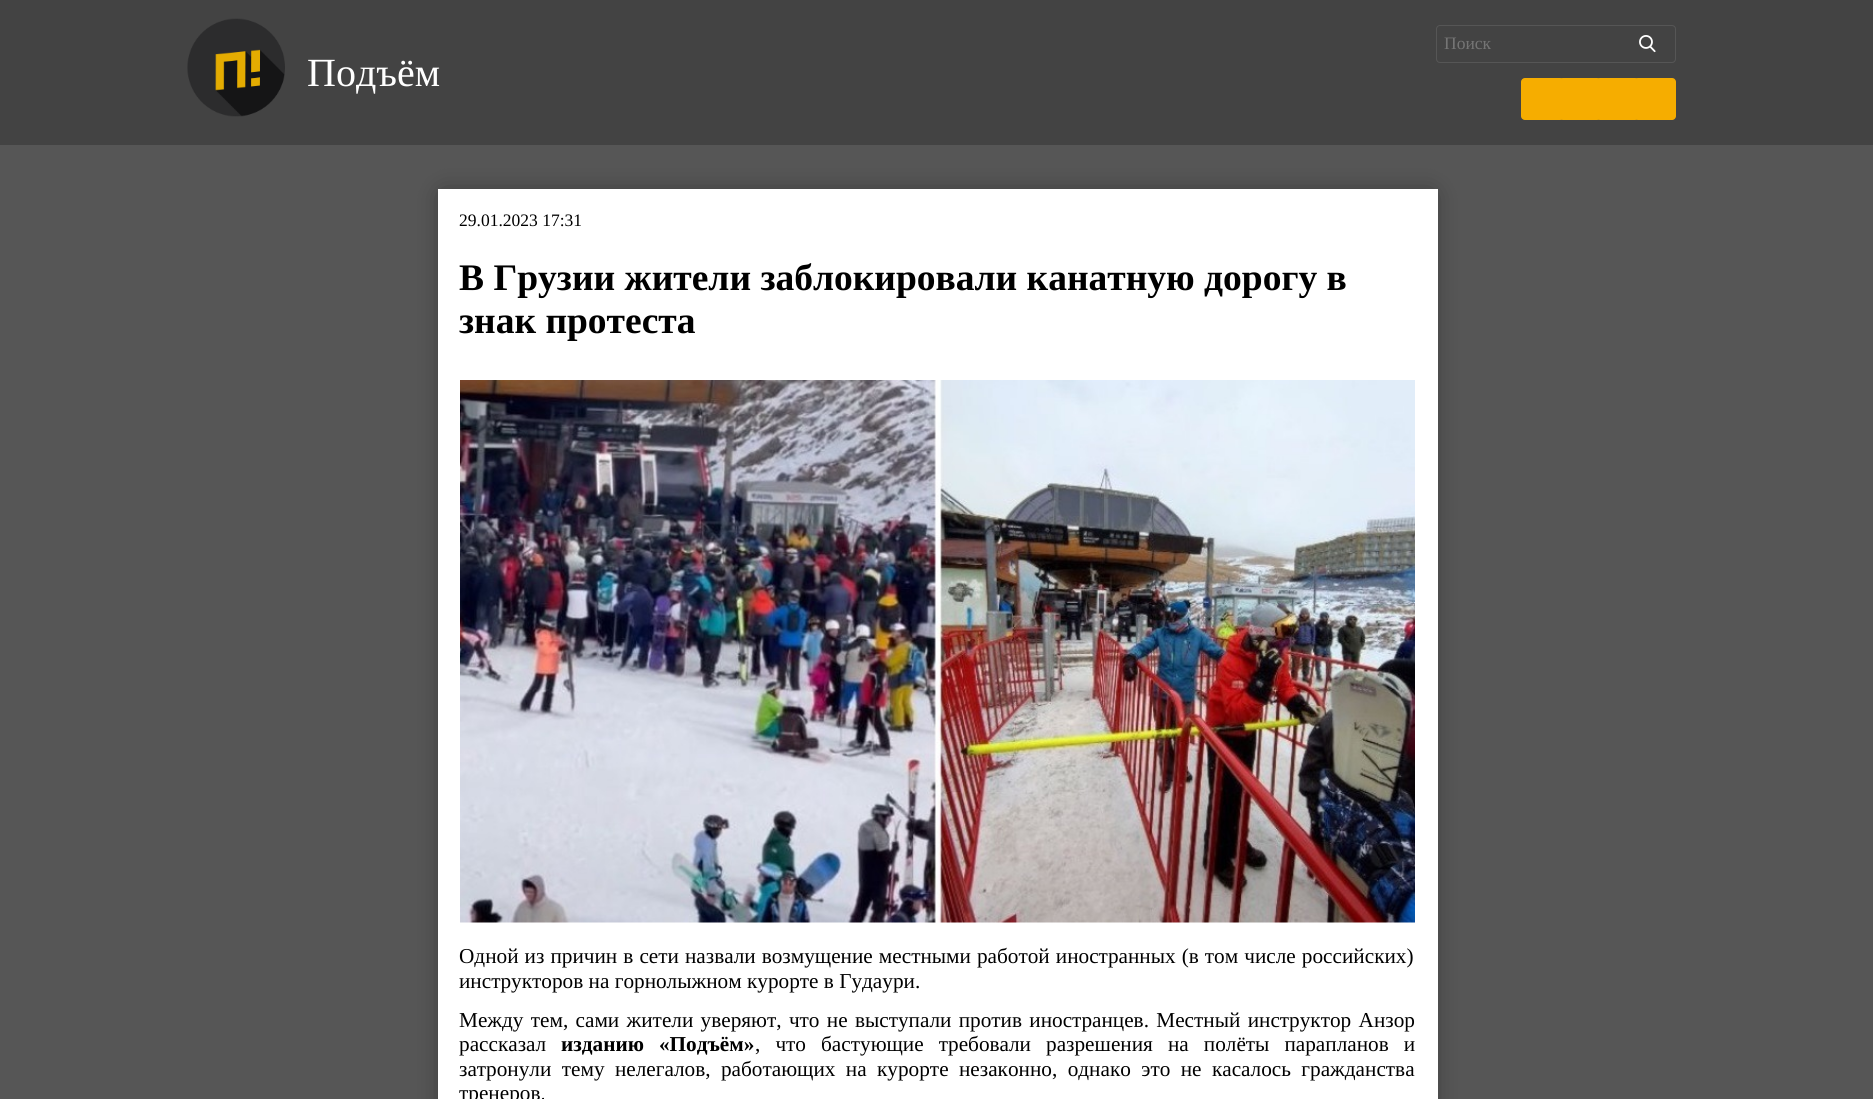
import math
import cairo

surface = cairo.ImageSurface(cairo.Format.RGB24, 1873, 1099)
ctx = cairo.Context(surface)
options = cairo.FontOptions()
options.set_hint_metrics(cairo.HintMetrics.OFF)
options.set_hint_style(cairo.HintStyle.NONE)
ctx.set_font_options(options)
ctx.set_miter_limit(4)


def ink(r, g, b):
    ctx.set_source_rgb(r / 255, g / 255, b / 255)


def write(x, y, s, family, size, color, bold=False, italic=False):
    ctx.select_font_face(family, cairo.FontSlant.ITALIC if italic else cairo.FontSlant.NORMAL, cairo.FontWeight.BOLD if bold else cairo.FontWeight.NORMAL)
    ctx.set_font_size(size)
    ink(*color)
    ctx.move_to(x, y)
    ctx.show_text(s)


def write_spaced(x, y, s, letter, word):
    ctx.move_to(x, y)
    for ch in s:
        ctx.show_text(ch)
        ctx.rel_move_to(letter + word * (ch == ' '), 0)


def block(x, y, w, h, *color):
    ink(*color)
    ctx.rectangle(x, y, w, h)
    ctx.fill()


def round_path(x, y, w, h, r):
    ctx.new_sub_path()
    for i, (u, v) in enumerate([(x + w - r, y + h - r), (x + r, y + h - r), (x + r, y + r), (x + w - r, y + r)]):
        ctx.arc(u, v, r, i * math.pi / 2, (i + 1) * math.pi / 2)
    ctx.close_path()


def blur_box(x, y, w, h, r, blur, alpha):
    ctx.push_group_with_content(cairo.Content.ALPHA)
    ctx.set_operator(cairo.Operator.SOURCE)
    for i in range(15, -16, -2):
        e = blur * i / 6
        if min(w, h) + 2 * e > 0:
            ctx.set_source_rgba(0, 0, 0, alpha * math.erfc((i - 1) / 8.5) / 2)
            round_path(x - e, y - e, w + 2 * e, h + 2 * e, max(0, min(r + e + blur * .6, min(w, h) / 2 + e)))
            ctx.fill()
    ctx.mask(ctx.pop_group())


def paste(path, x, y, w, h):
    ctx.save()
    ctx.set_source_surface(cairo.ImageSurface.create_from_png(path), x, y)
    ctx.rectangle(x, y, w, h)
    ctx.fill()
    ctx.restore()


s1 = dict(family="Liberation Serif", size=17.5, color=(117, 117, 117))
s2 = dict(family="Liberation Serif", size=40, color=(255, 255, 255))
s3 = dict(family="Liberation Serif", size=17.5, color=(0, 0, 0))
s4 = dict(family="Liberation Serif", size=37.5, color=(0, 0, 0), bold=True)
s5 = dict(family="Liberation Serif", size=21.25, color=(0, 0, 0))

ink(86, 86, 86)
ctx.paint()
block(0, 0, 1873, 145, 67, 67, 67)
round_path(1436.5, 25.5, 239, 37, 3.5)
ink(86, 86, 86)
ctx.set_line_width(1)
ctx.stroke()
write(1444, 49, "Поиск", **s1)
paste("pic1.png", 1639, 35, 17, 18)
ink(246, 173, 0)
round_path(1521, 78, 43, 42, 4)
ctx.fill()
round_path(1559, 78, 42, 42, 4)
ctx.fill()
round_path(1596, 78, 43, 42, 4)
ctx.fill()
round_path(1634, 78, 42, 42, 4)
ctx.fill()
paste("pic2.png", 187, 18, 98, 99)
write(307, 86, "Подъём", **s2)
ink(0, 0, 0)
blur_box(444, 195, 987, 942, 0, 12.5, 0.49)
block(438, 189, 1000, 910, 255, 255, 255)
write(459, 226, "29.01.2023 17:31", **s3)
write(459, 290, "В Грузии жители заблокировали канатную дорогу в", **s4)
write(459, 333, "знак протеста", **s4)
paste("pic3.png", 460, 380, 955, 543)
ctx.select_font_face("Liberation Serif")
ctx.set_font_size(21.25)
write_spaced(459, 963, "Одной из причин в сети назвали возмущение местными работой иностранных (в том числе российских)", 0, 0.75)
write(459, 988, "инструкторов на горнолыжном курорте в Гудаури.", **s5)
write_spaced(459, 1027, "Между тем, сами жители уверяют, что не выступали против иностранцев. Местный инструктор Анзор", 0, 2)
write(459, 1051, "рассказал", **s5)
ctx.select_font_face("Liberation Serif", cairo.FontSlant.NORMAL, cairo.FontWeight.BOLD)
write_spaced(561, 1051, "изданию «Подъём»", 0, 9.75)
ctx.select_font_face("Liberation Serif")
write_spaced(755, 1051, ", что бастующие требовали разрешения на полёты парапланов и", 0, 9.75)
write_spaced(459, 1076, "затронули тему нелегалов, работающих на курорте незаконно, однако это не касалось гражданства", 0, 5.1)
write(459, 1100, "тренеров.", **s5)
surface.write_to_png("screenshot.png")
